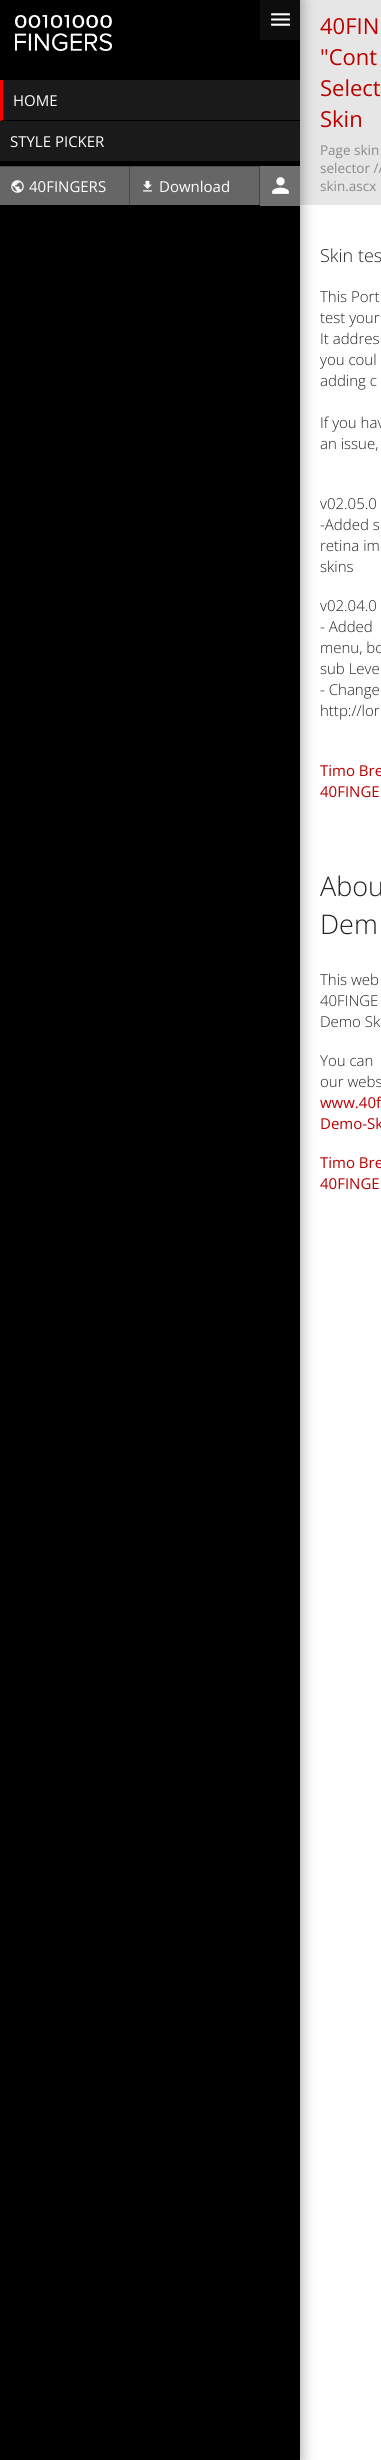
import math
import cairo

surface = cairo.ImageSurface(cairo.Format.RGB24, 381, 2460)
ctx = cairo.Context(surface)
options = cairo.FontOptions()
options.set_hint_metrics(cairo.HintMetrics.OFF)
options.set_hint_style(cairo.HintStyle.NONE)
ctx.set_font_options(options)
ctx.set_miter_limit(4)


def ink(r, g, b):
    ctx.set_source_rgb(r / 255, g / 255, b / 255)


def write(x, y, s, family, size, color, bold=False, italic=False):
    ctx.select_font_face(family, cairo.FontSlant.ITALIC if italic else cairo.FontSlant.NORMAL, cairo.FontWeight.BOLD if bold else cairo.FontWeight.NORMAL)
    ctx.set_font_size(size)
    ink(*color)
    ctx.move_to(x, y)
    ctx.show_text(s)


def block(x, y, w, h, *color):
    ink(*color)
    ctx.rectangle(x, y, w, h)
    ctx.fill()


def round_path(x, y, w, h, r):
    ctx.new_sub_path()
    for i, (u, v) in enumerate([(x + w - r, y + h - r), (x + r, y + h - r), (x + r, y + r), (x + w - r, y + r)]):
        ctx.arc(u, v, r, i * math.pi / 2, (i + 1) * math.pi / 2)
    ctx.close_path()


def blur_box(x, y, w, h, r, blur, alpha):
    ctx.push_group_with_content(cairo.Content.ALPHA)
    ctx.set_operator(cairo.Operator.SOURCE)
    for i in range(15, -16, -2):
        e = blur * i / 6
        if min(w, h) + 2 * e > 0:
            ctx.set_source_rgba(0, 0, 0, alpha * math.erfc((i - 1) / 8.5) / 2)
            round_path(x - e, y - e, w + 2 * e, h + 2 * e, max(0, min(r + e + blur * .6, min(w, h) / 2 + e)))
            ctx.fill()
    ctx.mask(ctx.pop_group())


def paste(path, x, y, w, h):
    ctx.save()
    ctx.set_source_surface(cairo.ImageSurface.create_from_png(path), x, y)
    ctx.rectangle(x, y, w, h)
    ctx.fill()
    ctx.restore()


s1 = dict(family="Open Sans", size=15, color=(255, 255, 255))
s2 = dict(family="Open Sans", size=22, color=(187, 0, 0))
s3 = dict(family="Open Sans", size=13.5, color=(138, 138, 138))
s4 = dict(family="Open Sans Light", size=18, color=(34, 34, 34))
s5 = dict(family="Open Sans Light", size=15, color=(34, 34, 34))
s6 = dict(family="Open Sans", size=15, color=(187, 0, 0))
s7 = dict(family="Open Sans Light", size=27, color=(34, 34, 34))

ink(255, 255, 255)
ctx.paint()
block(300, 0, 81, 205, 230, 230, 230)
ink(0, 0, 0)
blur_box(0, 0, 300, 2460, 0, 7.5, 0.4)
block(0, 0, 300, 2460, 0, 0, 0)
paste("pic1.png", 15, 15, 97, 36)
block(260, 0, 40, 40, 13, 13, 13)
paste("pic2.png", 271, 13, 19, 13)
block(0, 80, 300, 81, 26, 26, 26)
ink(0, 0, 0)
ctx.new_path()
ctx.move_to(300, 121)
ctx.line_to(0, 121)
ctx.line_to(3, 120)
ctx.line_to(300, 120)
ctx.close_path()
ctx.fill()
ink(255, 0, 0)
ctx.new_path()
ctx.move_to(0, 121)
ctx.line_to(0, 80)
ctx.line_to(3, 80)
ctx.line_to(3, 120)
ctx.close_path()
ctx.fill()
write(13, 106, "HOME", **s1)
write(10, 147, "STYLE PICKER", **s1)
block(0, 166, 260, 39, 102, 102, 102)
ink(71, 71, 71)
ctx.new_path()
ctx.move_to(0, 166)
ctx.line_to(130, 166)
ctx.line_to(129, 167)
ctx.line_to(0, 167)
ctx.close_path()
ctx.fill()
ctx.set_source_rgba(0, 0, 0, 0.3)
ctx.new_path()
ctx.move_to(130, 166)
ctx.line_to(130, 205)
ctx.line_to(129, 205)
ctx.line_to(129, 167)
ctx.close_path()
ctx.fill()
paste("pic3.png", 11, 180, 13, 13)
write(29, 192, "40FINGERS", **s1)
ink(71, 71, 71)
ctx.new_path()
ctx.move_to(130, 166)
ctx.line_to(260, 166)
ctx.line_to(259, 167)
ctx.line_to(130, 167)
ctx.close_path()
ctx.fill()
ctx.set_source_rgba(0, 0, 0, 0.3)
ctx.new_path()
ctx.move_to(260, 166)
ctx.line_to(260, 205)
ctx.line_to(259, 205)
ctx.line_to(259, 167)
ctx.close_path()
ctx.fill()
paste("pic4.png", 143, 180, 9, 12)
write(159, 192, "Download", **s1)
block(260, 166, 40, 40, 110, 110, 110)
paste("pic5.png", 272, 177, 17, 17)
write(320, 34, "40FIN", **s2)
write(320, 65, "\"Cont", **s2)
write(320, 96, "Select", **s2)
write(320, 127, "Skin", **s2)
write(320, 155, "Page skin", **s3)
write(320, 173, "selector //", **s3)
write(320, 191, "skin.ascx", **s3)
write(320, 262, "Skin tes", **s4)
write(320, 302, "This Port", **s5)
write(320, 323, "test your", **s5)
write(320, 344, "It addres", **s5)
write(320, 365, "you coul", **s5)
write(320, 386, "adding c", **s5)
write(320, 428, "If you hav", **s5)
write(320, 449, "an issue,", **s5)
write(320, 509, "v02.05.0", **s5)
write(320, 530, "-Added s", **s5)
write(320, 551, "retina im", **s5)
write(320, 572, "skins", **s5)
write(320, 611, "v02.04.0", **s5)
write(320, 632, "- Added", **s5)
write(320, 653, "menu, bo", **s5)
write(320, 674, "sub Leve", **s5)
write(320, 695, "- Change", **s5)
write(320, 716, "http://lor", **s5)
write(320, 776, "Timo Bre", **s6)
write(320, 797, "40FINGE", **s6)
write(320, 896, "Abou", **s7)
write(320, 934, "Dem", **s7)
write(320, 985, "This web", **s5)
write(320, 1006, "40FINGE", **s5)
write(320, 1027, "Demo Sk", **s5)
write(320, 1066, "You can", **s5)
write(320, 1087, "our webs", **s5)
write(320, 1108, "www.40f", **s6)
write(320, 1129, "Demo-Sk", **s6)
write(320, 1168, "Timo Bre", **s6)
write(320, 1189, "40FINGE", **s6)
surface.write_to_png("screenshot.png")
